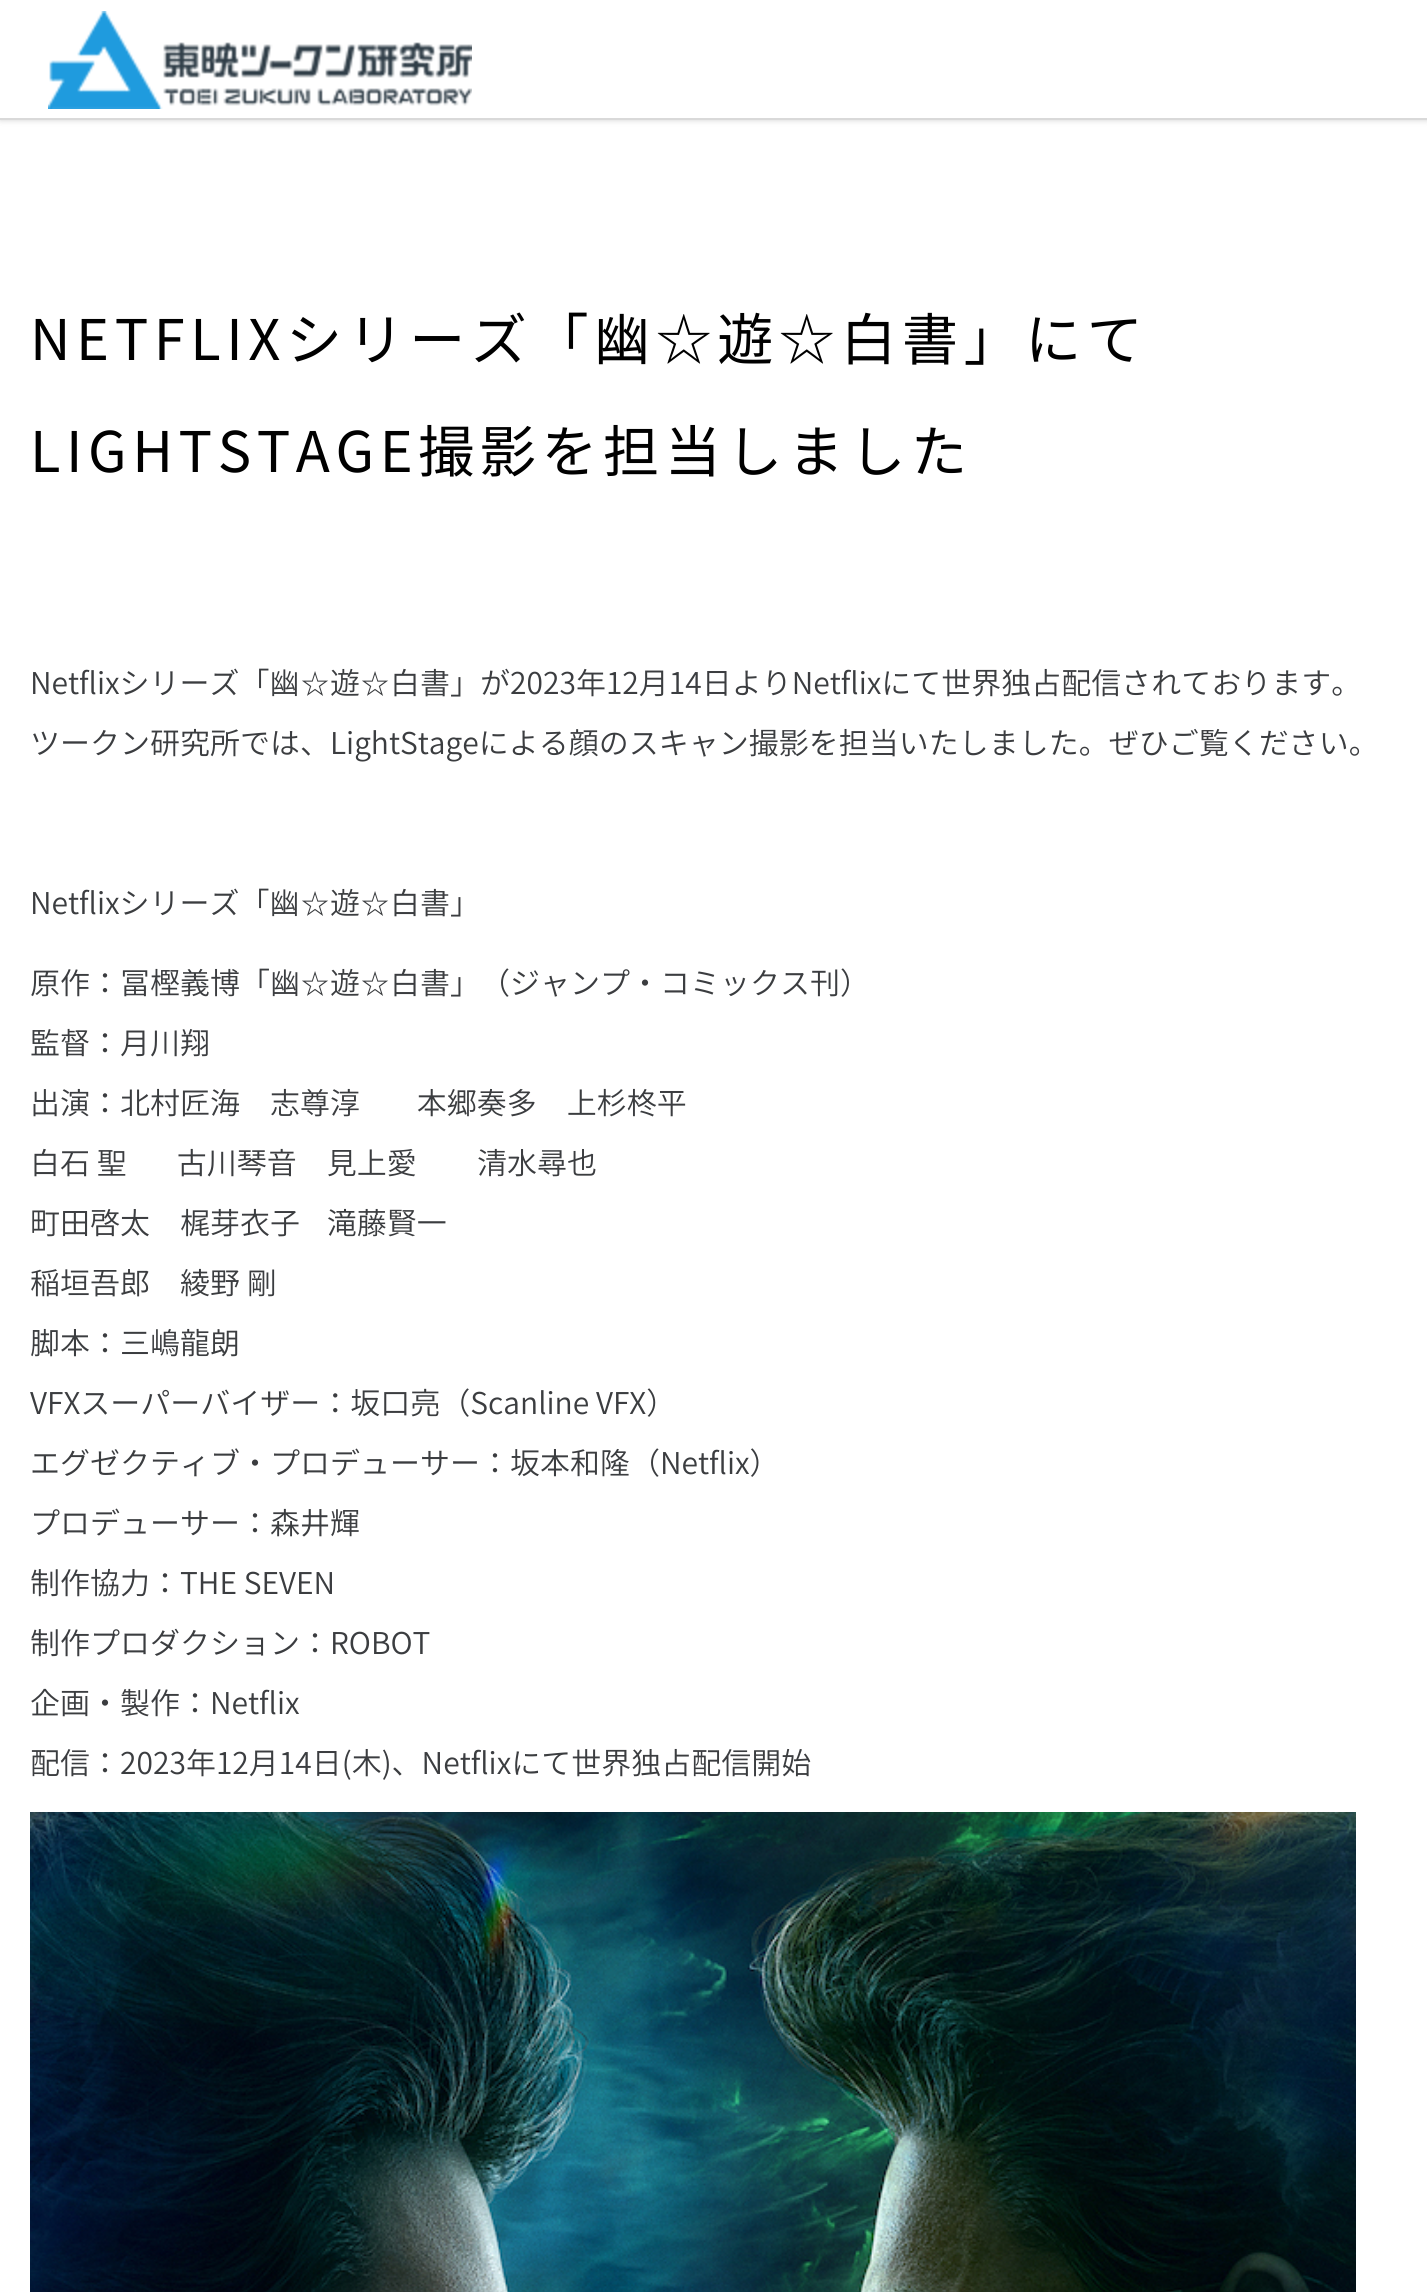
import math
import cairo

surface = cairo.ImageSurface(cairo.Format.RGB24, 1427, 2292)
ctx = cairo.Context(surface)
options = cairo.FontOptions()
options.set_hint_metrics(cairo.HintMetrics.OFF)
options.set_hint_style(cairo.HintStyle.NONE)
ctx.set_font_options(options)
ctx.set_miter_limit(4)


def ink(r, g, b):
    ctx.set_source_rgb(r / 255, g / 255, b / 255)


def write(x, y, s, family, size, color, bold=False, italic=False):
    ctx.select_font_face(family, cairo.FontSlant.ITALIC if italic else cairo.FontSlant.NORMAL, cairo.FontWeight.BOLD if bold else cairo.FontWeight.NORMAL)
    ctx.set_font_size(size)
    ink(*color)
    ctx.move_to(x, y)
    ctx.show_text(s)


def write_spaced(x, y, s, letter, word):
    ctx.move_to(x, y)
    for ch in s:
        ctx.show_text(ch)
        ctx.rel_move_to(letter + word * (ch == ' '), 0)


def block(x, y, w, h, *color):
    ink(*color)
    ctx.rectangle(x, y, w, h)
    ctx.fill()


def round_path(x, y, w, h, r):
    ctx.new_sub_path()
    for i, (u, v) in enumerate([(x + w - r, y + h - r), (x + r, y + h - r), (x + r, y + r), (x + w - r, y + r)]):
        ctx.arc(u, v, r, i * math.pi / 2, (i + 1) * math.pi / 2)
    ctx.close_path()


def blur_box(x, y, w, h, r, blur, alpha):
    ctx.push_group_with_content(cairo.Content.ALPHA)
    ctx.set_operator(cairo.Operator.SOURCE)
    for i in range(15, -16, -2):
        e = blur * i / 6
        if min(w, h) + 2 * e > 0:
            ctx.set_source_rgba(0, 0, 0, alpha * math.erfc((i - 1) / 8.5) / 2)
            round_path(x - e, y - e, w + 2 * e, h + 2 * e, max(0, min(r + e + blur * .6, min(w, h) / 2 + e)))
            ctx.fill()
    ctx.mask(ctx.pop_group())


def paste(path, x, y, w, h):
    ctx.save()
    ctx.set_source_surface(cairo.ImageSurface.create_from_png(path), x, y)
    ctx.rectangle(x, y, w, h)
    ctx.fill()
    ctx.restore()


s1 = dict(family="Noto Sans JP Light", size=30, color=(59, 61, 64))
s2 = dict(family="WenQuanYi Zen Hei Medium", size=30, color=(59, 61, 64))

ink(255, 255, 255)
ctx.paint()
ink(0, 0, 0)
blur_box(0, 0, 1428, 120, 0, 3, 0.18)
block(0, 0, 1427, 118, 255, 255, 255)
block(0, 118, 1427, 2, 217, 217, 217)
paste("pic1.png", 48, 11, 424, 98)
ctx.select_font_face("Noto Sans JP")
ctx.set_font_size(56)
ink(0, 0, 0)
write_spaced(30, 360, "NETFLIXシリーズ「幽☆遊☆白書」にて", 5.6, 0)
write_spaced(30, 472, "LIGHTSTAGE撮影を担当しました", 5.6, 0)
write(30, 694, "Netflixシリーズ「幽", **s1)
write(300, 694, "☆", **s2)
write(330, 694, "遊", **s1)
write(360, 694, "☆", **s2)
write(390, 694, "白書」が2023年12月14日よりNetflixにて世界独占配信されております。", **s1)
write(30, 754, "ツークン研究所では、LightStageによる顔のスキャン撮影を担当いたしました。ぜひご覧ください。", **s1)
write(30, 914, "Netflixシリーズ「幽", **s1)
write(300, 914, "☆", **s2)
write(330, 914, "遊", **s1)
write(360, 914, "☆", **s2)
write(390, 914, "白書」", **s1)
write(30, 994, "原作：冨樫義博「幽", **s1)
write(300, 994, "☆", **s2)
write(330, 994, "遊", **s1)
write(360, 994, "☆", **s2)
write(390, 994, "白書」（ジャンプ・コミックス刊）", **s1)
write(30, 1054, "監督：月川翔", **s1)
write(30, 1114, "出演：北村匠海　志尊淳　    本郷奏多　上杉柊平", **s1)
write(30, 1174, "白石 聖　   古川琴音　見上愛         清水尋也", **s1)
write(30, 1234, "町田啓太　梶芽衣子    滝藤賢一", **s1)
write(30, 1294, "稲垣吾郎　綾野 剛", **s1)
write(30, 1354, "脚本：三嶋龍朗", **s1)
write(30, 1414, "VFXスーパーバイザー：坂口亮（Scanline VFX）", **s1)
write(30, 1474, "エグゼクティブ・プロデューサー：坂本和隆（Netflix）", **s1)
write(30, 1534, "プロデューサー：森井輝", **s1)
write(30, 1594, "制作協力：THE SEVEN", **s1)
write(30, 1654, "制作プロダクション：ROBOT", **s1)
write(30, 1714, "企画・製作：Netflix", **s1)
write(30, 1774, "配信：2023年12月14日(木)、Netflixにて世界独占配信開始", **s1)
paste("pic2.png", 30, 1812, 1326, 480)
surface.write_to_png("screenshot.png")
